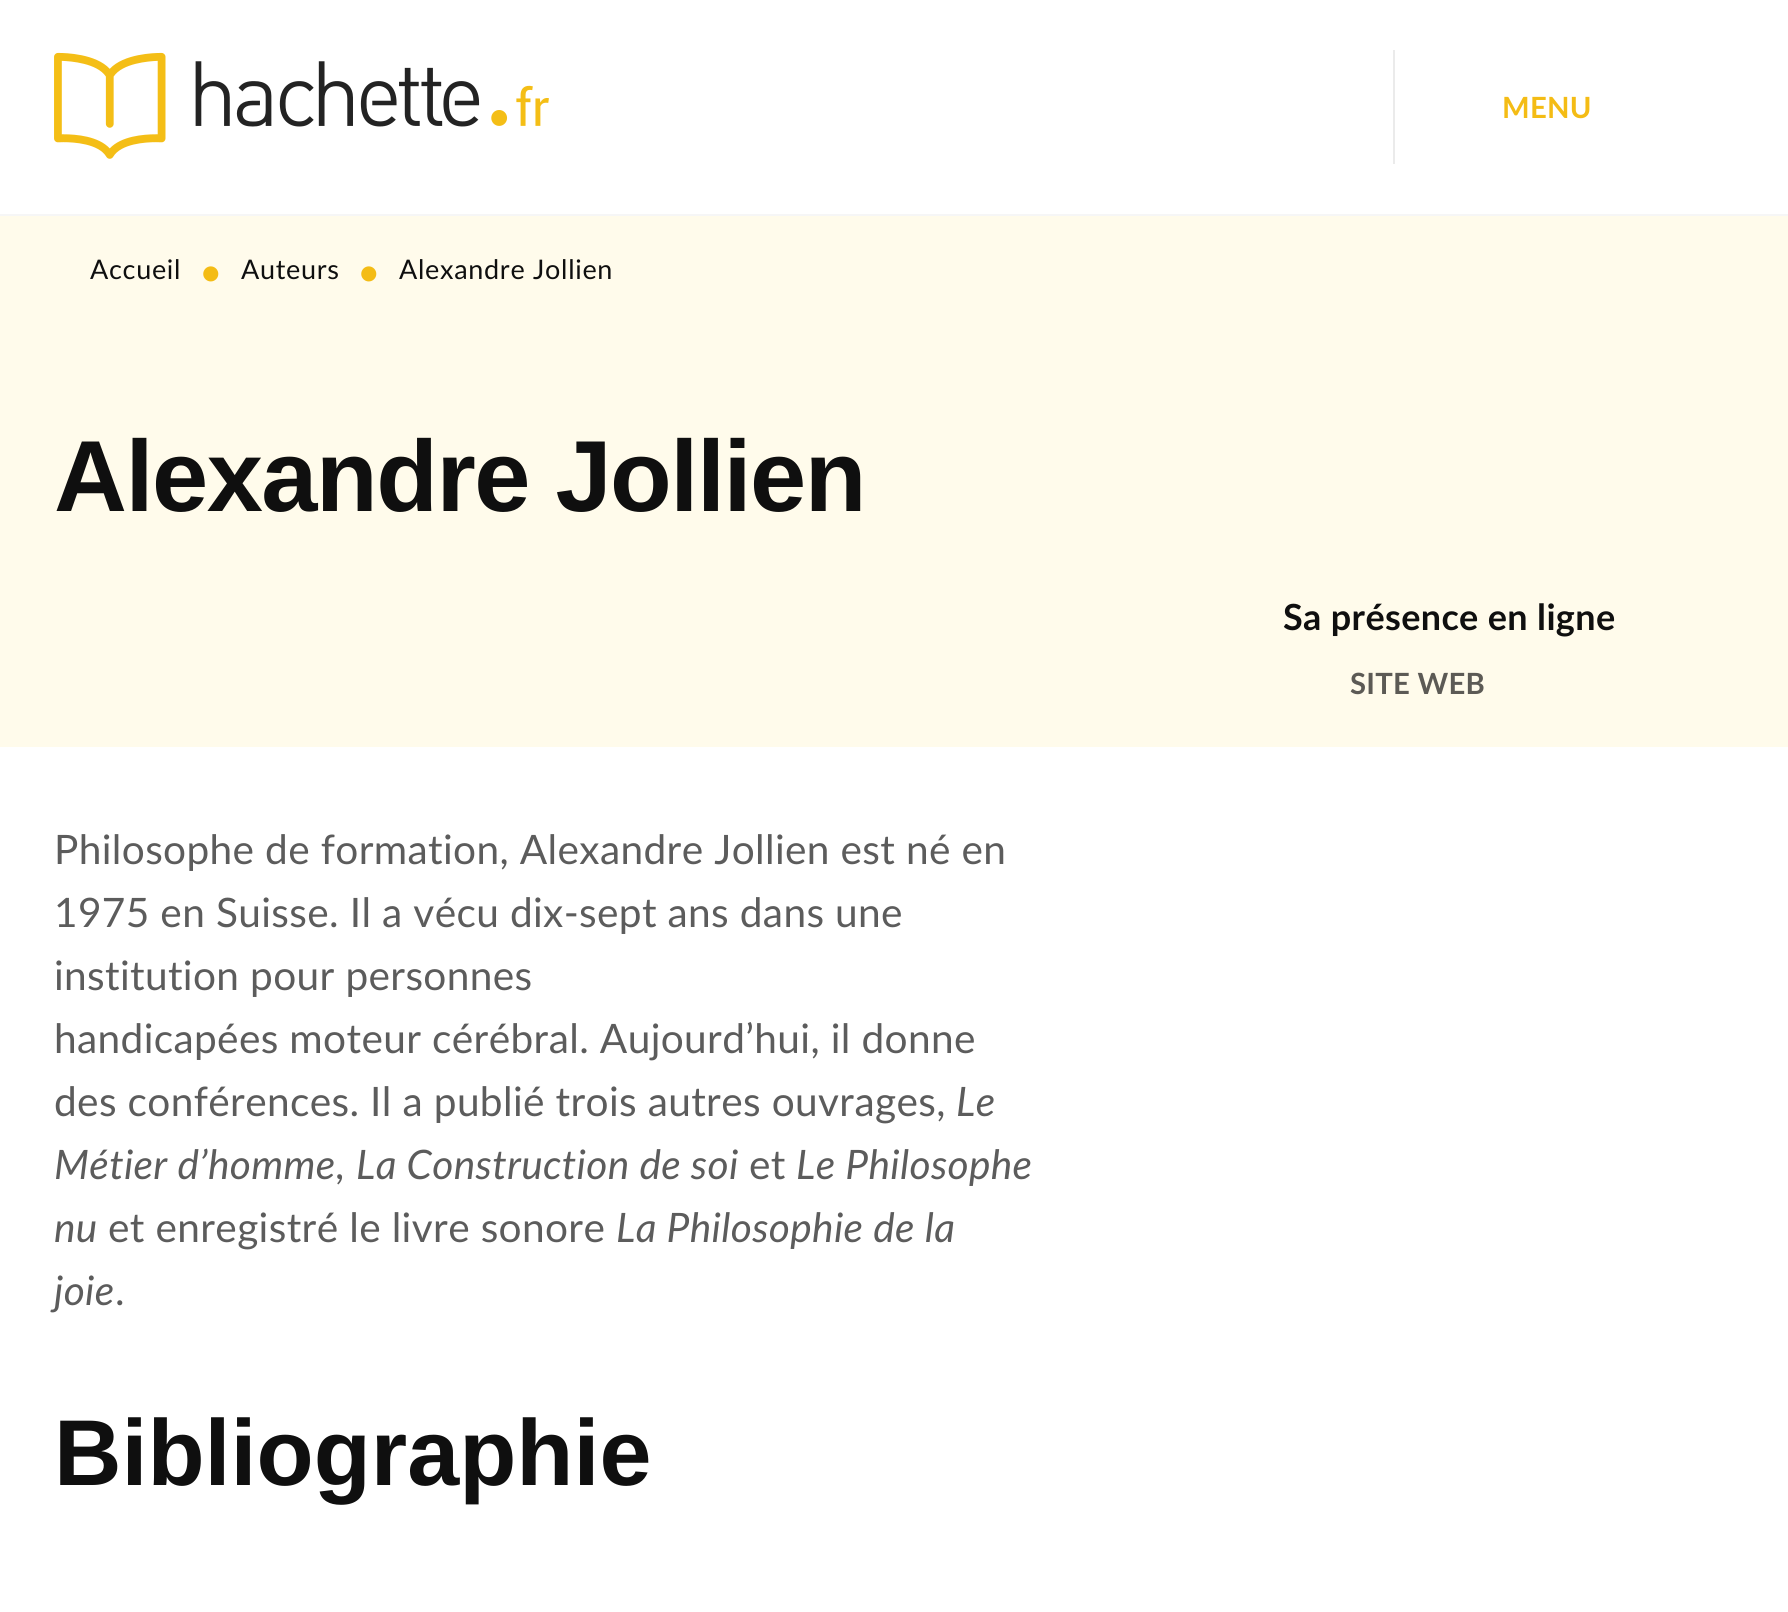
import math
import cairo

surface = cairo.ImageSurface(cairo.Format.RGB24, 1788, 1612)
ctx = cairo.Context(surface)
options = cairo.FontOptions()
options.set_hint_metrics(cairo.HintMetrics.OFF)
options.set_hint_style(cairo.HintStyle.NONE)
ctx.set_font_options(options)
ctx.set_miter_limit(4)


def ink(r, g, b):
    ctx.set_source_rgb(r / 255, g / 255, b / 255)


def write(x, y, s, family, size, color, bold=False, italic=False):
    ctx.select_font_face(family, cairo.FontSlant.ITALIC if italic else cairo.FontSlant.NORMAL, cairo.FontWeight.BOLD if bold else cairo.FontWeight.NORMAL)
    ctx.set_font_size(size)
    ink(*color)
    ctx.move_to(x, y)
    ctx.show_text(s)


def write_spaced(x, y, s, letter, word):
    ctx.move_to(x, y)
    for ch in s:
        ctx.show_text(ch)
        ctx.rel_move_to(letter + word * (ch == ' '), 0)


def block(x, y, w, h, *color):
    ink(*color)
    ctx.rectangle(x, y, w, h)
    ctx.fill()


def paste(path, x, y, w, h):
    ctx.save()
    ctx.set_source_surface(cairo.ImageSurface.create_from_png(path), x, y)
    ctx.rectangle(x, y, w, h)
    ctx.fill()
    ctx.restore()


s1 = dict(family="Liberation Sans", size=93.5, color=(15, 15, 15), bold=True)

ink(255, 255, 255)
ctx.paint()
block(0, 214, 1788, 2, 246, 246, 246)
paste("pic1.png", 54, 52, 495, 107)
block(1393, 50, 2, 114, 235, 235, 235)
ctx.select_font_face("Lato", cairo.FontSlant.NORMAL, cairo.FontWeight.BOLD)
ctx.set_font_size(29.25)
ink(244, 188, 21)
write_spaced(1502, 118, "MENU", 0.25, 0)
block(0, 216, 1788, 531, 255, 251, 235)
ctx.select_font_face("Lato")
ctx.set_font_size(27)
ink(15, 15, 15)
write_spaced(90, 279, "Accueil", 0.7, 0)
ctx.set_font_size(40.6)
ink(244, 188, 21)
write_spaced(199, 286, "•", 0.35, 0)
ctx.set_font_size(27)
ink(15, 15, 15)
write_spaced(241, 279, "Auteurs", 0.7, 0)
ctx.set_font_size(40.6)
ink(244, 188, 21)
write_spaced(357, 286, "•", 0.35, 0)
ctx.set_font_size(27)
ink(15, 15, 15)
write_spaced(399, 279, "Alexandre Jollien", 0.7, 0)
ctx.select_font_face("Liberation Sans", cairo.FontSlant.NORMAL, cairo.FontWeight.BOLD)
ctx.set_font_size(101)
write_spaced(54, 511, "Alexandre Jollien", -1.5, 0)
ctx.select_font_face("Lato", cairo.FontSlant.NORMAL, cairo.FontWeight.BOLD)
ctx.set_font_size(36)
write_spaced(1283, 630, "Sa présence en ligne", 0.35, 0)
ctx.set_font_size(29.25)
ink(92, 90, 85)
write_spaced(1350, 694, "SITE WEB", 0.25, 0)
ctx.select_font_face("Lato")
ctx.set_font_size(40.6)
ink(92, 92, 92)
write_spaced(54, 864, "Philosophe de formation, Alexandre Jollien est né en", 0.35, 0)
write_spaced(54, 927, "1975 en Suisse. Il a vécu dix-sept ans dans une", 0.35, 0)
write_spaced(54, 990, "institution pour personnes", 0.35, 0)
write_spaced(54, 1053, "handicapées moteur cérébral. Aujourd’hui, il donne", 0.35, 0)
write_spaced(54, 1116, "des conférences. Il a publié trois autres ouvrages,", 0.35, 0)
ctx.select_font_face("Lato", cairo.FontSlant.ITALIC)
write_spaced(956, 1116, "Le", 0.35, 0)
write_spaced(54, 1179, "Métier d’homme", 0.35, 0)
ctx.select_font_face("Lato")
write_spaced(335, 1179, ",", 0.35, 0)
ctx.select_font_face("Lato", cairo.FontSlant.ITALIC)
write_spaced(356, 1179, "La Construction de soi", 0.35, 0)
ctx.select_font_face("Lato")
write_spaced(749, 1179, "et", 0.35, 0)
ctx.select_font_face("Lato", cairo.FontSlant.ITALIC)
write_spaced(796, 1179, "Le Philosophe", 0.35, 0)
write_spaced(54, 1242, "nu", 0.35, 0)
ctx.select_font_face("Lato")
write_spaced(108, 1242, "et enregistré le livre sonore", 0.35, 0)
ctx.select_font_face("Lato", cairo.FontSlant.ITALIC)
write_spaced(616, 1242, "La Philosophie de la", 0.35, 0)
write_spaced(54, 1305, "joie", 0.35, 0)
ctx.select_font_face("Lato")
write_spaced(115, 1305, ".", 0.35, 0)
write(54, 1485, "Bibliographie", **s1)
surface.write_to_png("screenshot.png")
